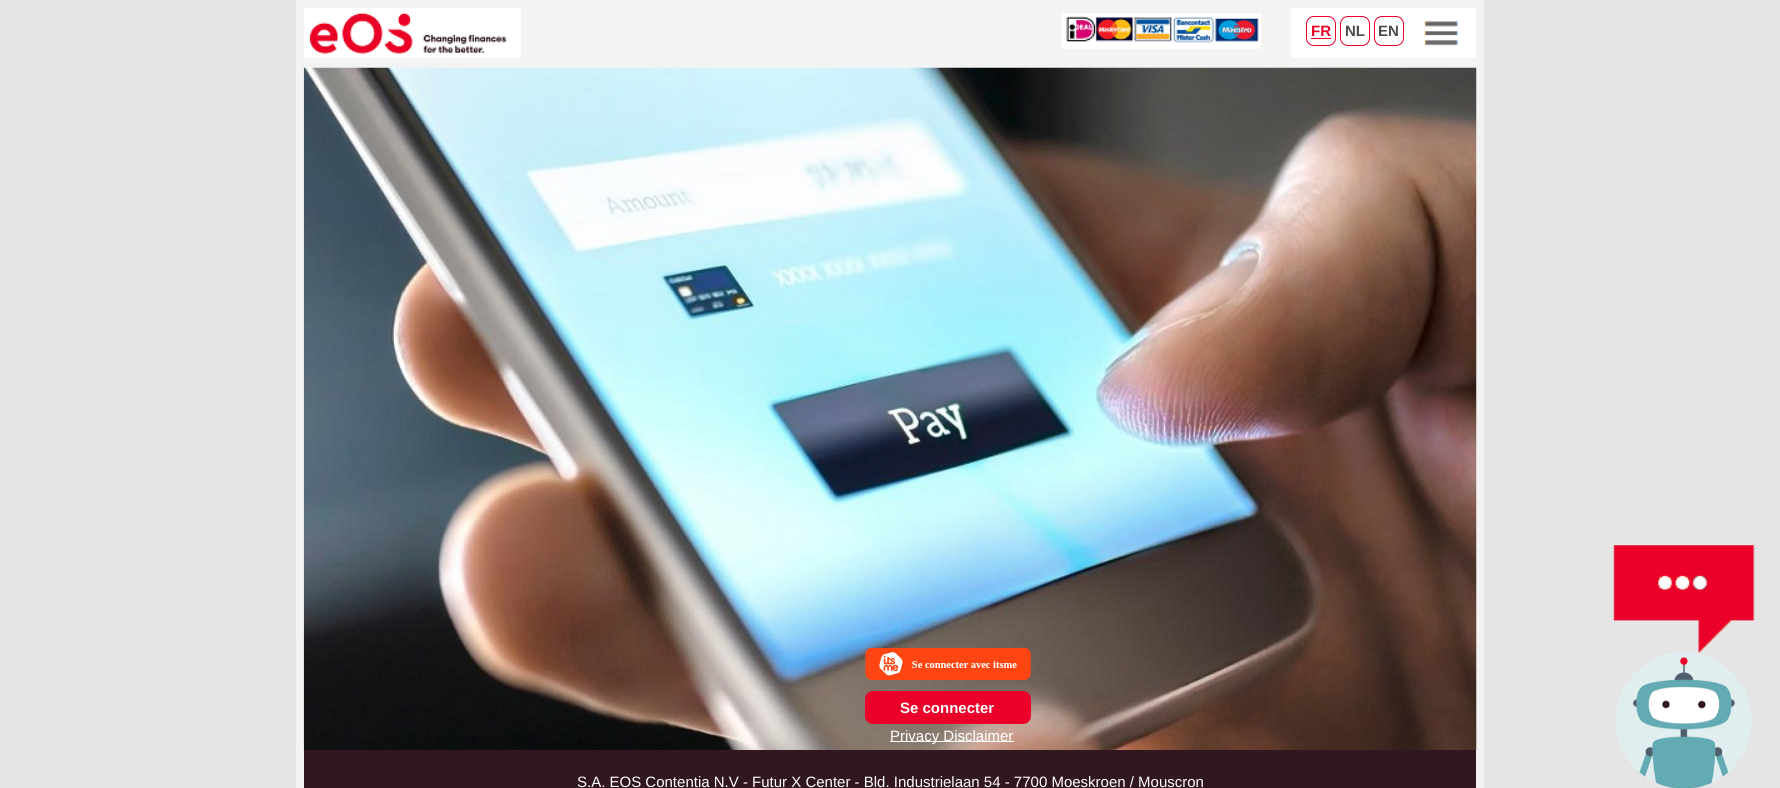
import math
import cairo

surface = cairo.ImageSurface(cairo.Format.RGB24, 1780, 788)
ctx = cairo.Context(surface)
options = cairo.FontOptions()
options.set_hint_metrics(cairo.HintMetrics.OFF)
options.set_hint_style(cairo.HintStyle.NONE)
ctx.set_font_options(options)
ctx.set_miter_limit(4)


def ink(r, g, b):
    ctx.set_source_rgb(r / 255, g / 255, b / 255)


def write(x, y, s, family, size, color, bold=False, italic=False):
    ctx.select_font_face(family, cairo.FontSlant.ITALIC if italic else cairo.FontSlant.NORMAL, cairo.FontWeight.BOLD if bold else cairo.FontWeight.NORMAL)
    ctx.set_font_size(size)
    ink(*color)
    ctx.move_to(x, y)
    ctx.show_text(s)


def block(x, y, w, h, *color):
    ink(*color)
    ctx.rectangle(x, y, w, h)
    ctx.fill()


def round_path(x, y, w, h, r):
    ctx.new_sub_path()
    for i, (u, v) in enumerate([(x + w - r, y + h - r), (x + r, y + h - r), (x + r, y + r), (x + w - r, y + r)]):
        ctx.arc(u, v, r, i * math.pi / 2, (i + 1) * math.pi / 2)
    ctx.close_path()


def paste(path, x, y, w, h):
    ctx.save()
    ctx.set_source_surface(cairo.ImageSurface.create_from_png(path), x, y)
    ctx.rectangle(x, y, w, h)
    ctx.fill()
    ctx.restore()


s1 = dict(family="Liberation Sans", size=15, color=(234, 0, 41), bold=True)
s2 = dict(family="Liberation Sans", size=15, color=(77, 77, 76), bold=True)
s3 = dict(family="Liberation Sans", size=15, color=(255, 255, 255), bold=True)
s4 = dict(family="Liberation Sans", size=15, color=(255, 255, 255))

ink(229, 229, 229)
ctx.paint()
block(296, 0, 1188, 788, 243, 243, 243)
block(304, 8, 217, 50, 255, 255, 255)
paste("pic1.png", 309, 13, 198, 41)
paste("pic2.png", 1061, 13, 200, 36)
block(1291, 8, 185, 50, 255, 255, 255)
round_path(1306.5, 16.5, 29, 29, 7.5)
ink(234, 0, 41)
ctx.set_line_width(1)
ctx.stroke()
write(1311, 36, "FR", **s1)
block(1311, 38, 20, 1, 234, 0, 41)
round_path(1340.5, 16.5, 29, 29, 7.5)
ctx.stroke()
write(1345, 36, "NL", **s2)
round_path(1374.5, 16.5, 29, 29, 7.5)
ink(234, 0, 41)
ctx.stroke()
write(1378, 36, "EN", **s2)
paste("pic3.png", 1423, 21, 35, 25)
paste("pic4.png", 303, 67, 1174, 683)
paste("pic5.png", 865, 648, 166, 32)
ink(234, 0, 41)
round_path(865, 691, 166, 33, 8)
ctx.fill()
round_path(865, 693, 164, 30, 8)
ctx.fill()
write(900, 713, "Se connecter", **s3)
block(890, 741, 124, 1, 255, 255, 255)
write(890, 741, "Privacy Disclaimer", **s4)
block(304, 750, 1172, 38, 49, 23, 31)
write(577, 787, "S.A. EOS Contentia N.V - Futur X Center - Bld. Industrielaan 54 - 7700 Moeskroen / Mouscron", **s4)
paste("pic6.png", 1613, 545, 142, 108)
paste("pic7.png", 1615, 652, 137, 136)
surface.write_to_png("screenshot.png")
